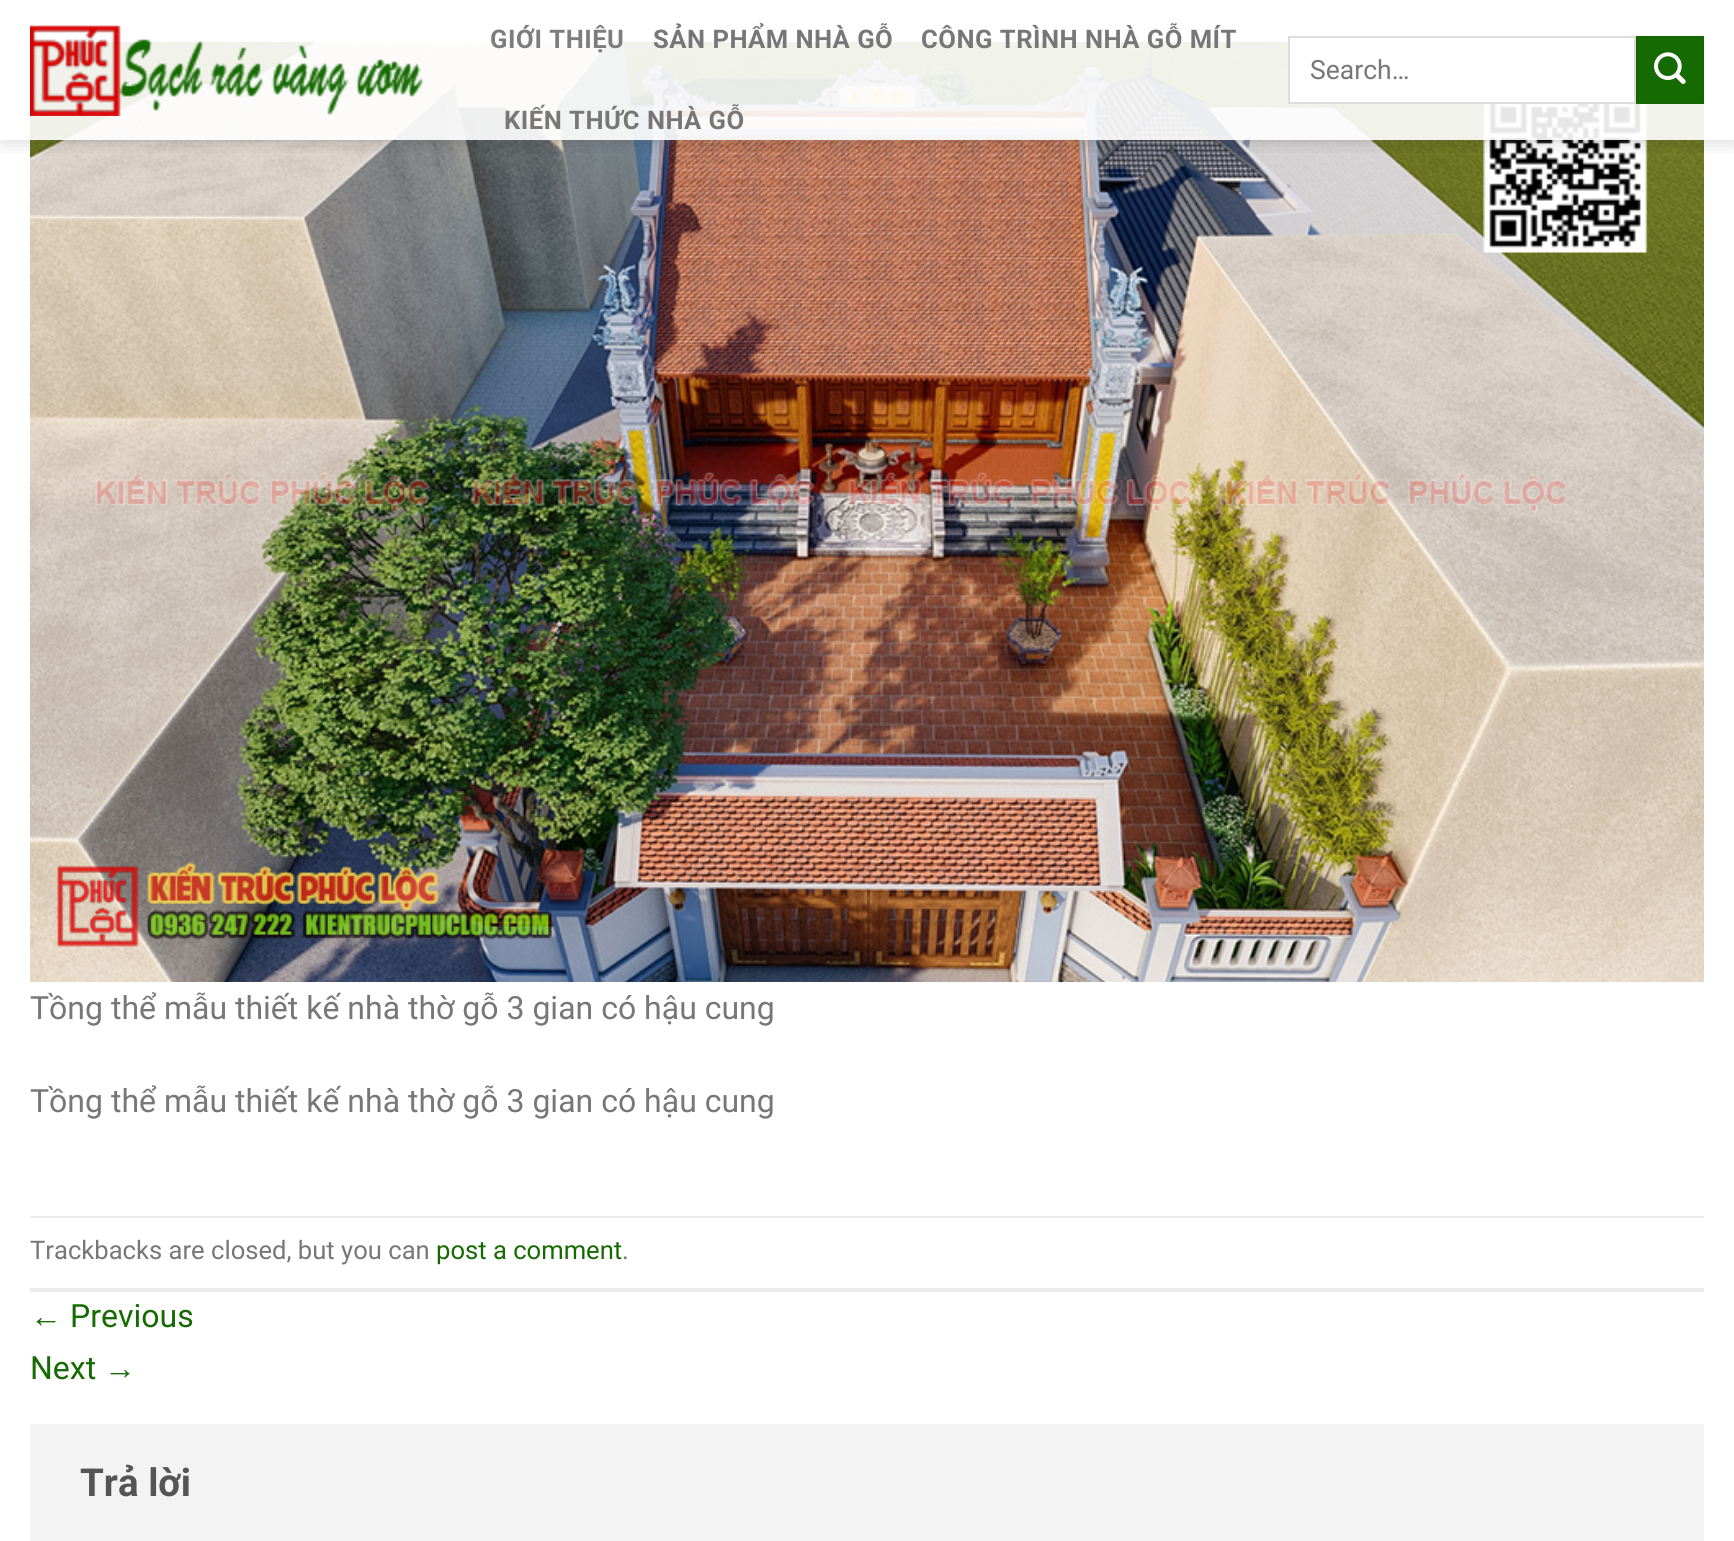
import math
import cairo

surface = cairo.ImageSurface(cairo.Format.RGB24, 1734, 1541)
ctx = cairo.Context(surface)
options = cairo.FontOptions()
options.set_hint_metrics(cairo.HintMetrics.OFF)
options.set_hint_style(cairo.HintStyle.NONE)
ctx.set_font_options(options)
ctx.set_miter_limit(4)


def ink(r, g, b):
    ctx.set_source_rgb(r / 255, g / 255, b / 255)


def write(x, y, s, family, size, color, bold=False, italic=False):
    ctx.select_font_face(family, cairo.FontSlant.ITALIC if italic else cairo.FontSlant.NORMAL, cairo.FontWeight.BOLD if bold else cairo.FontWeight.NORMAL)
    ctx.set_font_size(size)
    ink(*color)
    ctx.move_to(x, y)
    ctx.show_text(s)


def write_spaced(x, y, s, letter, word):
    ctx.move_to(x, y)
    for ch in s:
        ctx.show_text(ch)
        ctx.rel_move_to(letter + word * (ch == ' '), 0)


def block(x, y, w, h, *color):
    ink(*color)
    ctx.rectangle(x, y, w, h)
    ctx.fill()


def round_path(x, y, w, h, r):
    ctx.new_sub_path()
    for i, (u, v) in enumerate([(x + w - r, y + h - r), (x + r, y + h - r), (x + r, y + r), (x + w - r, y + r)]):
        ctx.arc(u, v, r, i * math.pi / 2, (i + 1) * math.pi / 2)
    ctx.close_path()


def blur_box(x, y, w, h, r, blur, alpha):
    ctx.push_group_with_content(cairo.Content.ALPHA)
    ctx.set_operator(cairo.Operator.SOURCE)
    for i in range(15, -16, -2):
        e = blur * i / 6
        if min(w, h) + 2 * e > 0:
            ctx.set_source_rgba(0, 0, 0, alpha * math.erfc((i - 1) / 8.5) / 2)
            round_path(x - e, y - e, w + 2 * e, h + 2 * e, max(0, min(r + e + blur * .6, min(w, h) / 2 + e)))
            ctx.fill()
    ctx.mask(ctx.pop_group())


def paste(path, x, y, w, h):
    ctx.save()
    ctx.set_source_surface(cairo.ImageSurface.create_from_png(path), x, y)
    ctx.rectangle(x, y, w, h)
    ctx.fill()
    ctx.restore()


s1 = dict(family="Roboto", size=26.5, color=(119, 119, 119))
s2 = dict(family="Roboto", size=32, color=(119, 119, 119))
s3 = dict(family="Roboto", size=25.6, color=(119, 119, 119))
s4 = dict(family="Roboto", size=25.6, color=(22, 106, 2))
s5 = dict(family="Liberation Sans", size=32, color=(22, 106, 2))
s6 = dict(family="Roboto", size=32, color=(22, 106, 2))
s7 = dict(family="Roboto", size=38.5, color=(85, 85, 85), bold=True)

ink(255, 255, 255)
ctx.paint()
paste("pic3.png", 30, 42, 1674, 940)
ctx.save()
ctx.rectangle(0, 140, 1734, 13)
ctx.clip()
ink(0, 0, 0)
blur_box(2, 2, 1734, 140, 0, 10, 0.15)
ctx.restore()
ctx.set_source_rgba(1, 1, 1, 0.9)
ctx.rectangle(30, 42, 1674, 98)
ctx.fill()
paste("pic1.png", 30, 25, 393, 91)
ctx.select_font_face("Roboto", cairo.FontSlant.NORMAL, cairo.FontWeight.BOLD)
ctx.set_font_size(25.6)
ink(125, 125, 125)
write_spaced(490, 48, "GIỚI THIỆU", 0.5, 0)
ink(119, 119, 119)
write_spaced(653, 48, "SẢN PHẨM NHÀ GỖ", 0.5, 0)
write_spaced(921, 48, "CÔNG TRÌNH NHÀ GỖ MÍT", 0.5, 0)
write_spaced(504, 129, "KIẾN THỨC NHÀ GỖ", 0.5, 0)
block(1290, 42, 344, 60, 255, 255, 255)
ctx.rectangle(1289, 37, 346, 66)
ink(221, 221, 221)
ctx.stroke()
write(1310, 79, "Search…", **s1)
ink(22, 106, 2)
ctx.rectangle(1637, 37, 66, 66)
ctx.fill_preserve()
ink(21, 101, 2)
ctx.stroke()
paste("pic2.png", 1654, 52, 32, 32)
ctx.set_source_rgba(0.467, 0.467, 0.467, 0.1)
ctx.rectangle(30, 140, 1674, 2)
ctx.fill()
write(30, 1019, "Tồng thể mẫu thiết kế nhà thờ gỗ 3 gian có hậu cung", **s2)
write(30, 1112, "Tồng thể mẫu thiết kế nhà thờ gỗ 3 gian có hậu cung", **s2)
block(30, 1216, 1674, 2, 236, 236, 236)
block(30, 1288, 1674, 4, 236, 236, 236)
write(30, 1259, "Trackbacks are closed, but you can", **s3)
write(436, 1259, "post a comment", **s4)
write(622, 1259, ".", **s3)
write(30, 1327, "←", **s5)
write(70, 1327, "Previous", **s6)
write(30, 1379, "Next", **s6)
write(104, 1379, "→", **s5)
block(30, 1424, 1674, 117, 243, 243, 243)
write(80, 1496, "Trả lời", **s7)
surface.write_to_png("screenshot.png")
